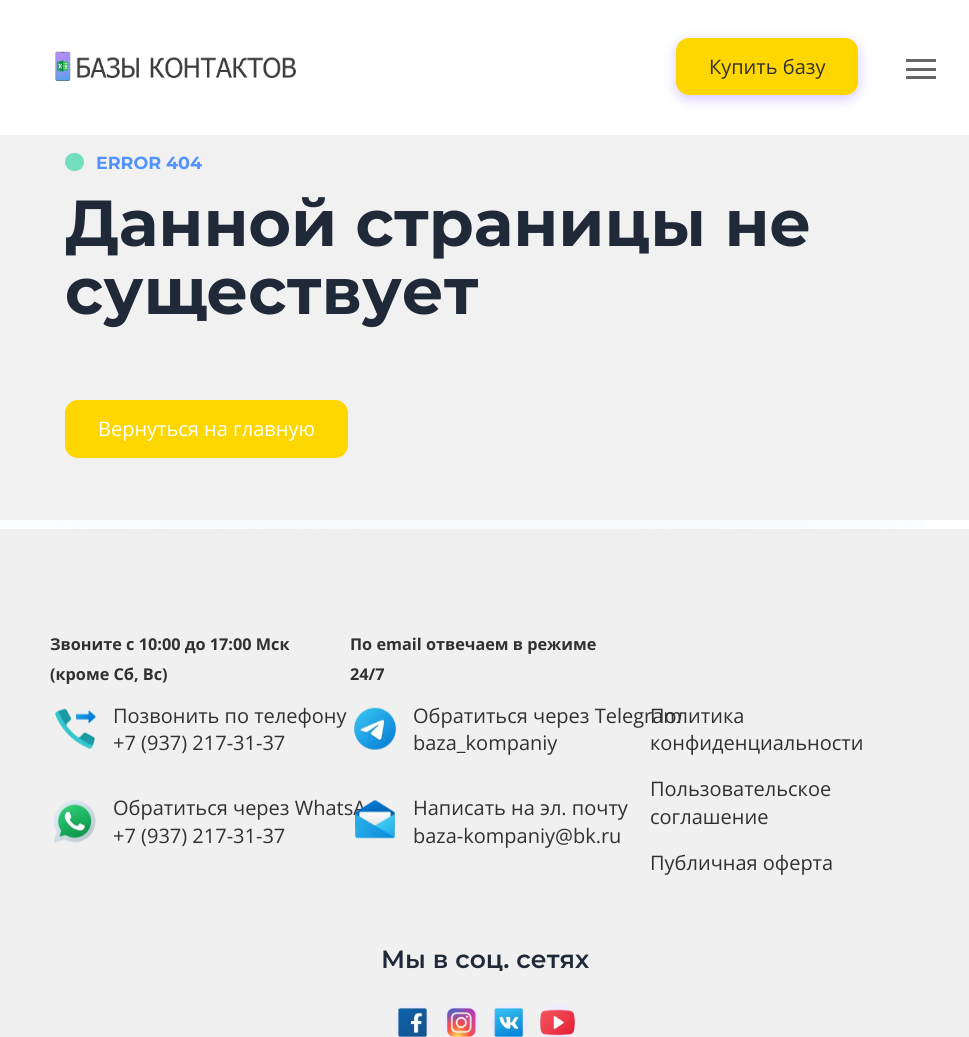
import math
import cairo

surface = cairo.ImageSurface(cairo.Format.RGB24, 969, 1037)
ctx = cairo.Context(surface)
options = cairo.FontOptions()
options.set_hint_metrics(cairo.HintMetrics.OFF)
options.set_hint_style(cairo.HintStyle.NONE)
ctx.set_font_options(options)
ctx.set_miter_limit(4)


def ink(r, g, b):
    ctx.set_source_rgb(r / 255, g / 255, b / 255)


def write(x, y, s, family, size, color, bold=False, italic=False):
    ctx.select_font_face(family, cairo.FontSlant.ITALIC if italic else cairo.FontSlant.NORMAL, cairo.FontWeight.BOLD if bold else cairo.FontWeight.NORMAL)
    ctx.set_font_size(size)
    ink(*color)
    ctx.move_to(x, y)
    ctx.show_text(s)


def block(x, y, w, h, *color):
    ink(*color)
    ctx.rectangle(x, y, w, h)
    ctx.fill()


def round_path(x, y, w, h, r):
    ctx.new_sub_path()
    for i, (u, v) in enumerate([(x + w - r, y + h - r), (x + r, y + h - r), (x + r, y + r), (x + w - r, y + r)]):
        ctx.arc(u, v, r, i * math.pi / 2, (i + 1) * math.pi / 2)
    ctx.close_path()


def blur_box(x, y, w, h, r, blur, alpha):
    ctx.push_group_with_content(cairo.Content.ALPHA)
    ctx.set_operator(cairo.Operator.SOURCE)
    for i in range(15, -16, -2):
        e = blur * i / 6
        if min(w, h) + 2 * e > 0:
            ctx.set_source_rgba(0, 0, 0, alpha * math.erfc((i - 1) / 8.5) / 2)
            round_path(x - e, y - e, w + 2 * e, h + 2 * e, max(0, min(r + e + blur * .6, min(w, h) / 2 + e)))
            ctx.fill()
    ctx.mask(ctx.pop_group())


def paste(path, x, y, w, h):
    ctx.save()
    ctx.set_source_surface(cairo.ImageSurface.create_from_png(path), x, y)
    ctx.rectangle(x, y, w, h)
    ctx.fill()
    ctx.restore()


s1 = dict(family="Open Sans", size=20, color=(49, 49, 49))
s2 = dict(family="Montserrat", size=17.5, color=(81, 146, 255), bold=True)
s3 = dict(family="Montserrat", size=65, color=(31, 41, 56), bold=True)
s4 = dict(family="Open Sans", size=20, color=(255, 255, 255))
s5 = dict(family="Open Sans", size=16.25, color=(49, 49, 49), bold=True)
s6 = dict(family="Montserrat SemiBold", size=25, color=(31, 41, 56))

ink(255, 255, 255)
ctx.paint()
paste("pic1.png", 1, 520, 923, 9)
paste("pic2.png", 55, 51, 241, 30)
block(906, 59, 30, 3, 102, 102, 102)
block(906, 68, 30, 3, 102, 102, 102)
block(906, 76, 30, 3, 102, 102, 102)
ink(151, 119, 250)
blur_box(676, 41, 182, 58, 13, 6, 0.4)
ink(255, 215, 0)
round_path(676, 38, 182, 57, 13)
ctx.fill()
write(709, 74, "Купить базу", **s1)
block(0, 135, 969, 385, 241, 241, 241)
ink(114, 224, 191)
round_path(65, 153, 19, 18, 9)
ctx.fill()
write(96, 169, "ERROR 404", **s2)
write(65, 246, "Данной страницы не", **s3)
write(65, 314, "существует", **s3)
ink(255, 215, 0)
round_path(65, 400, 283, 58, 13)
ctx.fill()
write(98, 436, "Вернуться на главную", **s4)
block(0, 529, 969, 508, 240, 240, 240)
write(50, 650, "Звоните с 10:00 до 17:00 Мск", **s5)
write(50, 680, "(кроме Сб, Вс)", **s5)
write(350, 650, "По email отвечаем в режиме", **s5)
write(350, 680, "24/7", **s5)
paste("pic3.png", 55, 708, 41, 41)
write(113, 723, "Позвонить по телефону", **s1)
write(113, 750, "+7 (937) 217-31-37", **s1)
paste("pic4.png", 54, 800, 42, 43)
write(113, 815, "Обратиться через WhatsA", **s1)
write(113, 843, "+7 (937) 217-31-37", **s1)
paste("pic5.png", 354, 707, 42, 43)
write(413, 723, "Обратиться через Telegram", **s1)
write(413, 750, "baza_kompaniy", **s1)
paste("pic6.png", 355, 800, 40, 39)
write(413, 815, "Написать на эл. почту", **s1)
write(413, 843, "baza-kompaniy@bk.ru", **s1)
write(650, 723, "Политика", **s1)
write(650, 750, "конфиденциальности", **s1)
write(650, 796, "Пользовательское", **s1)
write(650, 824, "соглашение", **s1)
write(650, 870, "Публичная оферта", **s1)
write(381, 968, "Мы в соц. сетях", **s6)
ink(239, 234, 255)
ctx.new_path()
ctx.arc(412.5, 1022.5, 18.5, 0, 2 * math.pi)
ctx.fill()
paste("pic7.png", 398, 1008, 29, 29)
ctx.arc(461.5, 1022.5, 18.5, 0, 2 * math.pi)
ctx.fill()
paste("pic8.png", 447, 1008, 29, 29)
round_path(490, 1004, 38, 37, 18.5)
ctx.fill()
paste("pic9.png", 494, 1008, 29, 29)
ctx.arc(557.5, 1022.5, 18.5, 0, 2 * math.pi)
ctx.fill()
paste("pic10.png", 540, 1009, 35, 27)
surface.write_to_png("screenshot.png")
